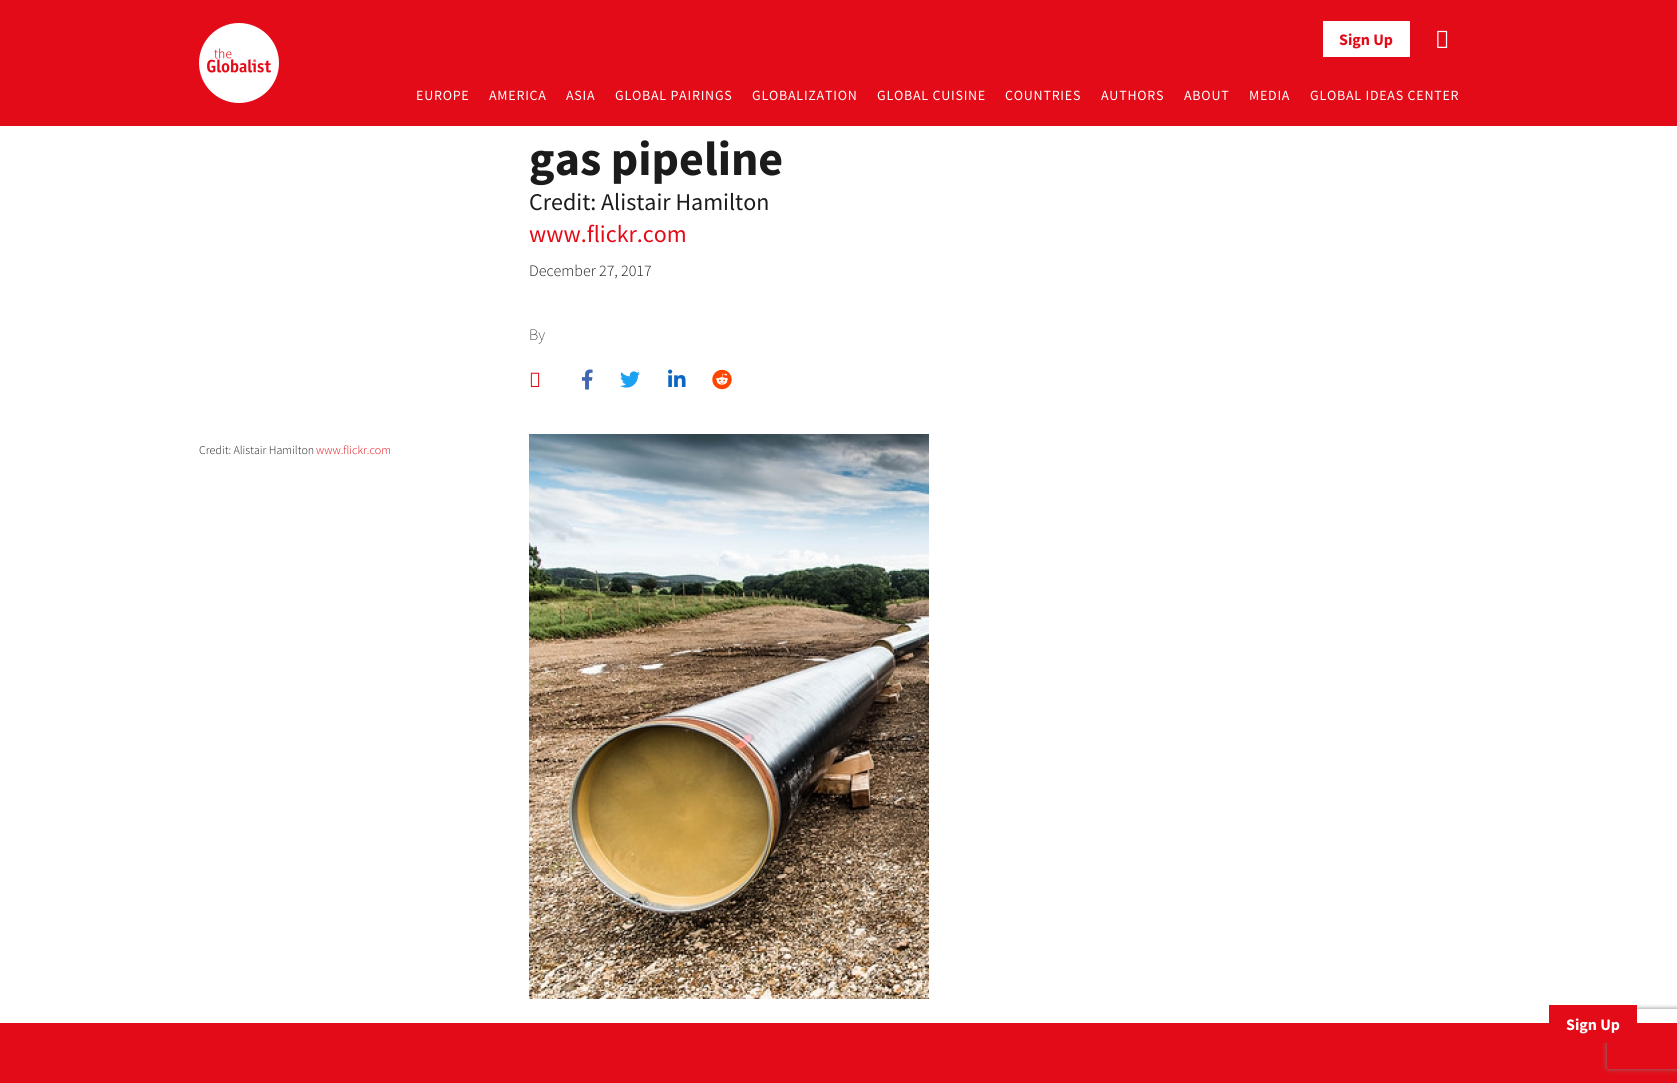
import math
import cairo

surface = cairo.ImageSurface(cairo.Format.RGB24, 1677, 1083)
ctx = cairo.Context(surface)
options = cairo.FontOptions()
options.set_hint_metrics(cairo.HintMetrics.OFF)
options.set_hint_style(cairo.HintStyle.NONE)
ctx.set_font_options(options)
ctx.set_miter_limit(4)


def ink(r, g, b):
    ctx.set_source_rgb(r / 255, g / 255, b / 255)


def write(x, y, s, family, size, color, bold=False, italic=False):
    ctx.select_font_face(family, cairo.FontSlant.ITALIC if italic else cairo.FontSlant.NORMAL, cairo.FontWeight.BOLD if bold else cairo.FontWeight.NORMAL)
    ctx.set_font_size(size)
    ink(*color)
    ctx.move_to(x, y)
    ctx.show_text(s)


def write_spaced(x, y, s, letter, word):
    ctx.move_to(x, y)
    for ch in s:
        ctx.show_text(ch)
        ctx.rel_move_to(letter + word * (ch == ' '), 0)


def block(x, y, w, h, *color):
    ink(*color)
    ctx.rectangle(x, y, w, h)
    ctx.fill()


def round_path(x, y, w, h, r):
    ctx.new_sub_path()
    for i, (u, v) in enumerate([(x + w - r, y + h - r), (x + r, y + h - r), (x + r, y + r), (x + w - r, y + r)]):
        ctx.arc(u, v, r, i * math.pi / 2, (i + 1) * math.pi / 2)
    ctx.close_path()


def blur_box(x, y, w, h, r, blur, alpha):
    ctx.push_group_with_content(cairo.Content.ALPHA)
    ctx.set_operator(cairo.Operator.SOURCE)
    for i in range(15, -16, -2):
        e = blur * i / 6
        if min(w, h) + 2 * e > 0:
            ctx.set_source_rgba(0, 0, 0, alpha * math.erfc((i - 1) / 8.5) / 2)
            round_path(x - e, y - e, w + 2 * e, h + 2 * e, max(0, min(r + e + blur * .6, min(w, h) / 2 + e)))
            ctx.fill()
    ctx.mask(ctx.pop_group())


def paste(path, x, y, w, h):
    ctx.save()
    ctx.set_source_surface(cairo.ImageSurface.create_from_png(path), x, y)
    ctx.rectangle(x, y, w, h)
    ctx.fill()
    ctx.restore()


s1 = dict(family="Source Sans Pro", size=16, color=(227, 11, 23), bold=True)
s2 = dict(family="Source Sans Pro", size=48, color=(28, 27, 28), bold=True)
s3 = dict(family="Source Sans Pro", size=24, color=(28, 27, 28))
s4 = dict(family="Source Sans Pro", size=24, color=(227, 11, 23))
s5 = dict(family="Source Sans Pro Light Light", size=16, color=(28, 27, 28))
s6 = dict(family="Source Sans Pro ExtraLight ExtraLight", size=16, color=(28, 27, 28))
s7 = dict(family="Source Sans Pro Light Light", size=12, color=(28, 27, 28))
s8 = dict(family="Source Sans Pro Light Light", size=12, color=(227, 11, 23))
s9 = dict(family="Source Sans Pro", size=16, color=(255, 255, 255), bold=True)

ink(255, 255, 255)
ctx.paint()
block(0, 0, 1677, 126, 227, 11, 23)
paste("pic1.png", 199, 23, 80, 80)
block(1323, 21, 87, 36, 255, 255, 255)
write(1339, 45, "Sign Up", **s1)
paste("pic2.png", 1437, 30, 11, 18)
ctx.select_font_face("Source Sans Pro")
ctx.set_font_size(14)
ink(255, 255, 255)
write_spaced(416, 100, "EUROPE", 0.75, 0)
write_spaced(489, 100, "AMERICA", 0.75, 0)
write_spaced(566, 100, "ASIA", 0.75, 0)
write_spaced(615, 100, "GLOBAL PAIRINGS", 0.75, 0)
write_spaced(752, 100, "GLOBALIZATION", 0.75, 0)
write_spaced(877, 100, "GLOBAL CUISINE", 0.75, 0)
write_spaced(1005, 100, "COUNTRIES", 0.75, 0)
write_spaced(1101, 100, "AUTHORS", 0.75, 0)
write_spaced(1184, 100, "ABOUT", 0.75, 0)
write_spaced(1249, 100, "MEDIA", 0.75, 0)
write_spaced(1310, 100, "GLOBAL IDEAS CENTER", 0.75, 0)
write(529, 175, "gas pipeline", **s2)
write(529, 210, "Credit: Alistair Hamilton", **s3)
write(529, 242, "www.flickr.com", **s4)
write(529, 276, "December 27, 2017", **s5)
write(529, 340, "By", **s6)
paste("pic3.png", 530, 372, 10, 15)
paste("pic4.png", 581, 369, 12, 21)
paste("pic5.png", 620, 371, 20, 17)
paste("pic6.png", 668, 369, 18, 18)
paste("pic7.png", 712, 369, 20, 21)
write(199, 454, "Credit: Alistair Hamilton", **s7)
write(316, 454, "www.flickr.com", **s8)
paste("pic8.png", 529, 434, 400, 565)
block(0, 1023, 1677, 60, 227, 11, 23)
ctx.save()
ctx.set_fill_rule(cairo.FillRule.EVEN_ODD)
ctx.new_path()
ctx.move_to(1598, 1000)
ctx.line_to(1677, 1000)
ctx.line_to(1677, 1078)
ctx.line_to(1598, 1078)
ctx.close_path()
ctx.move_to(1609, 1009)
ctx.line_to(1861, 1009)
ctx.curve_to(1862, 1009, 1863, 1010, 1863, 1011)
ctx.line_to(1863, 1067)
ctx.curve_to(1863, 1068, 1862, 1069, 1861, 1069)
ctx.line_to(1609, 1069)
ctx.curve_to(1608, 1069, 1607, 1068, 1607, 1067)
ctx.line_to(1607, 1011)
ctx.curve_to(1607, 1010, 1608, 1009, 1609, 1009)
ctx.close_path()
ctx.clip()
ink(128, 128, 128)
blur_box(1607, 1009, 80, 60, 2, 2.5, 1)
ctx.restore()
block(1549, 1005, 88, 38, 227, 11, 23)
write(1566, 1030, "Sign Up", **s9)
surface.write_to_png("screenshot.png")
